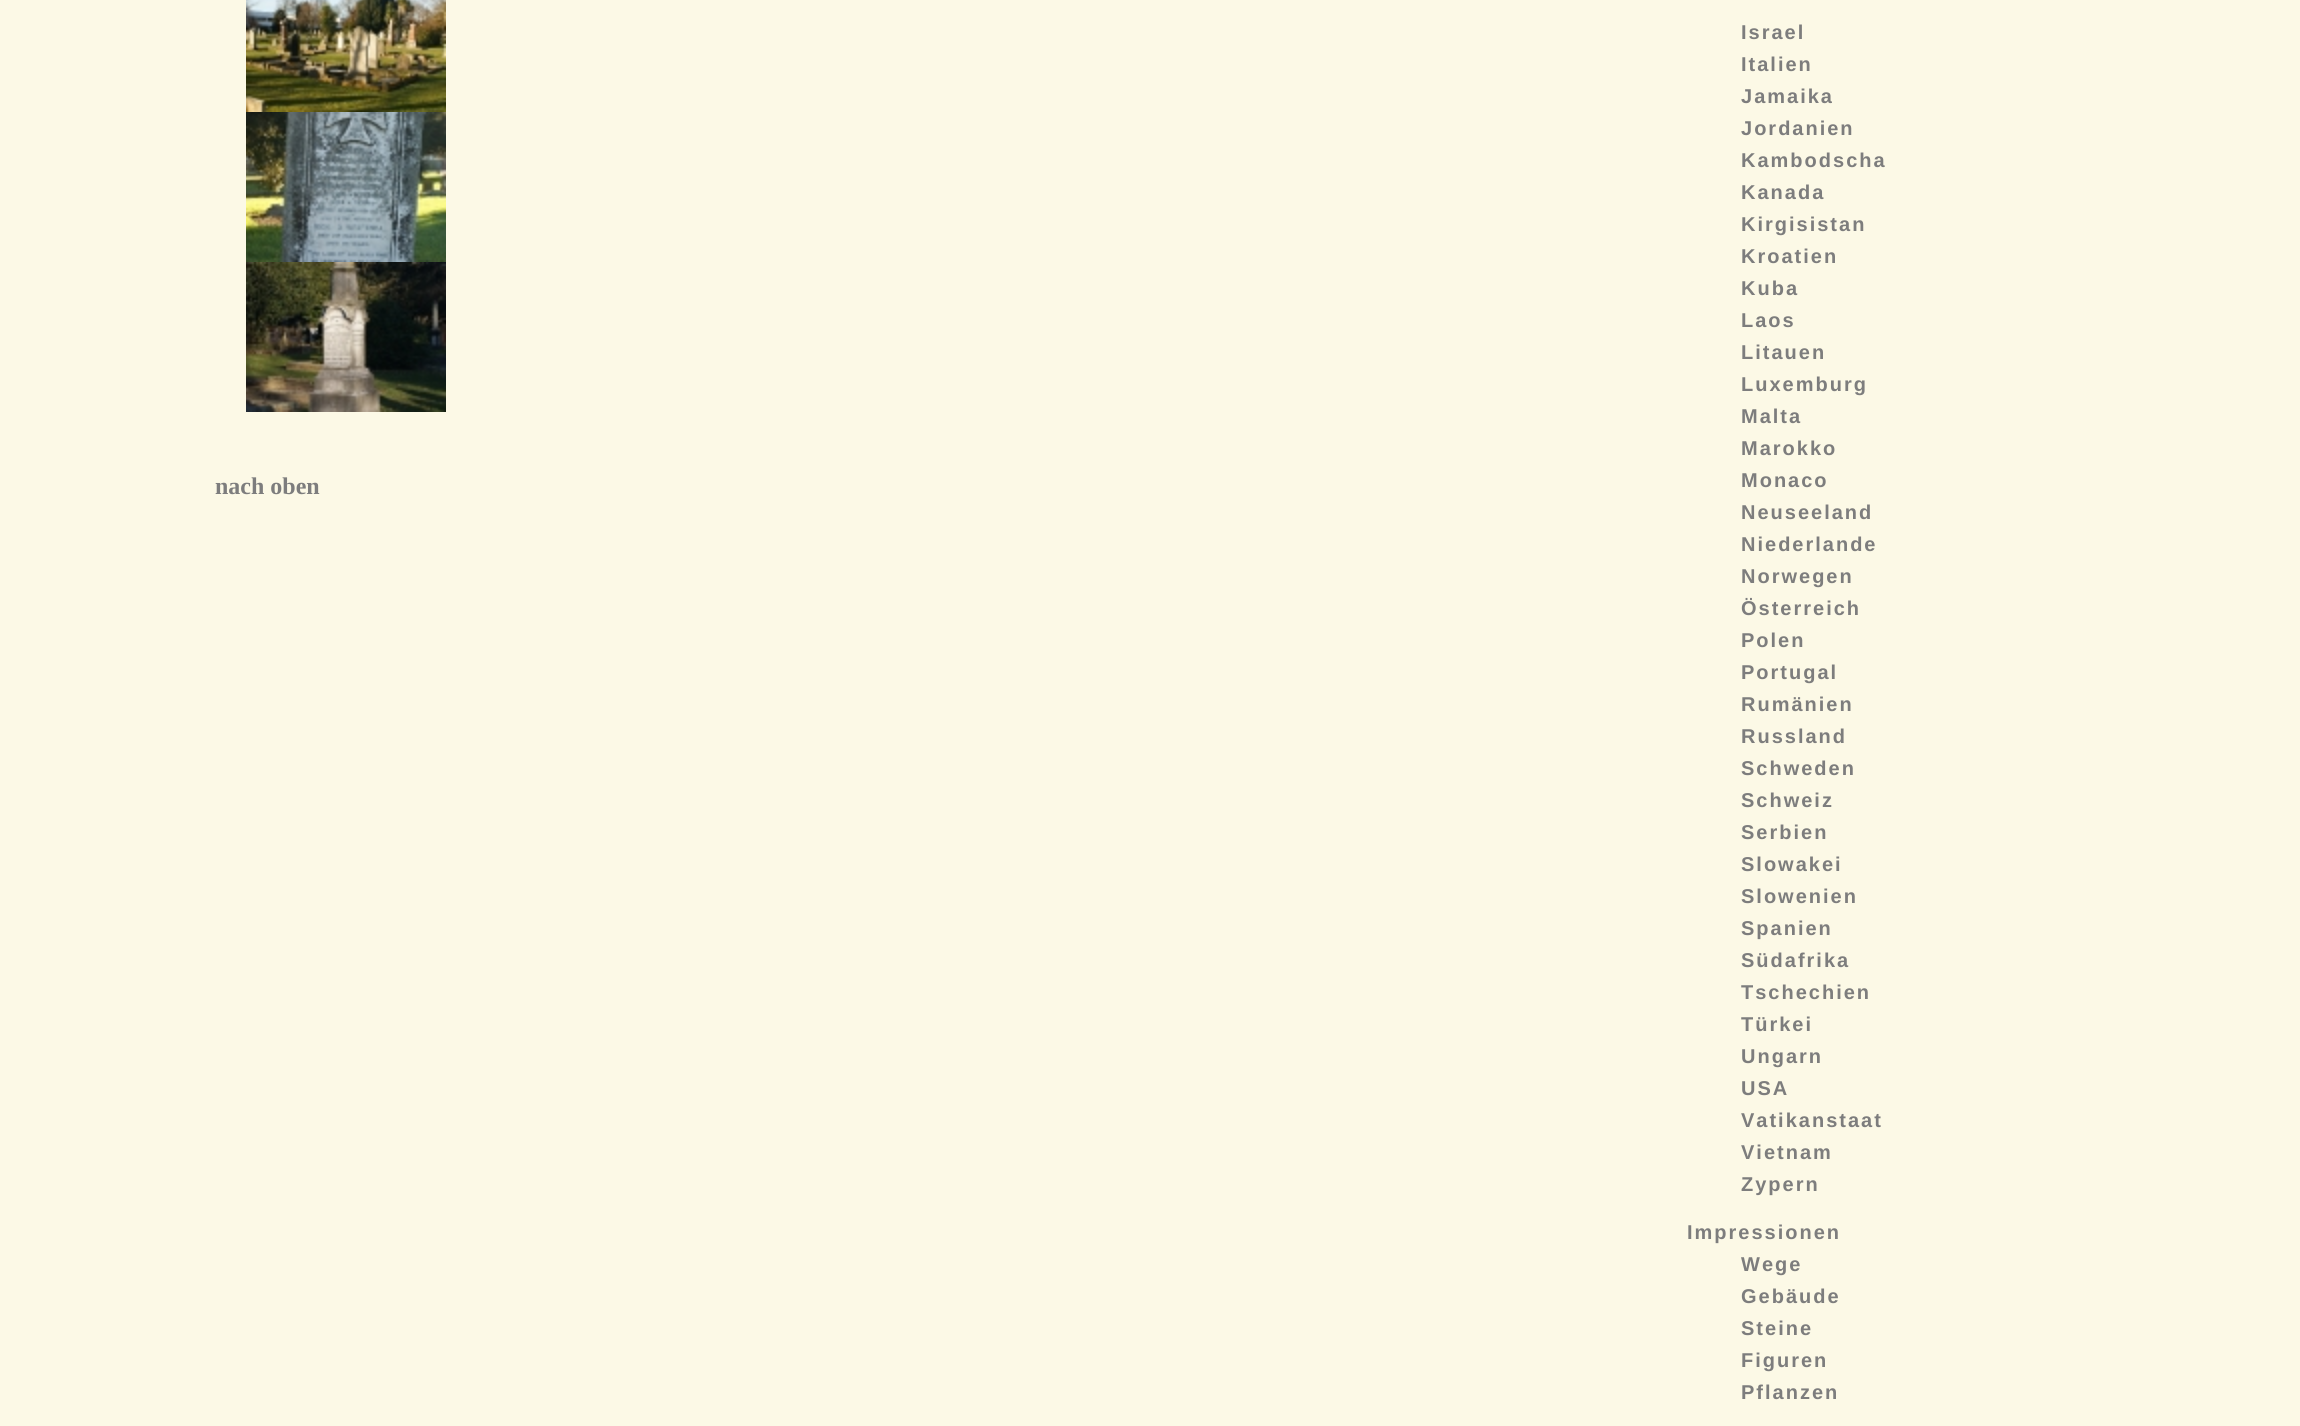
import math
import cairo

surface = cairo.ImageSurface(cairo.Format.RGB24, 2300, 1426)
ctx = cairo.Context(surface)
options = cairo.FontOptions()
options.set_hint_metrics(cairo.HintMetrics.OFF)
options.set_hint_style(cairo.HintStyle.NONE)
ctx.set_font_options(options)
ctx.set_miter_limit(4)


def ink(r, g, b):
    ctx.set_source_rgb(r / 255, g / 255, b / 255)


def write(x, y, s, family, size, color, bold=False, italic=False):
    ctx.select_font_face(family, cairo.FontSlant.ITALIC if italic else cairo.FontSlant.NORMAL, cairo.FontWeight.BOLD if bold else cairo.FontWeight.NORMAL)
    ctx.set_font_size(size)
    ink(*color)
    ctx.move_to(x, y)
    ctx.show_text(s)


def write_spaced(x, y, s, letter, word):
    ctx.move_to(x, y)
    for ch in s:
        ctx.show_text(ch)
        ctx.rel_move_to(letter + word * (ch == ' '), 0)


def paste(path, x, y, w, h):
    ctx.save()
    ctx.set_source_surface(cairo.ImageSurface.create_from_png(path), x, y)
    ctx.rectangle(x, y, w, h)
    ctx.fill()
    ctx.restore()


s1 = dict(family="Liberation Serif", size=24, color=(125, 125, 125), bold=True)

ink(252, 249, 230)
ctx.paint()
paste("pic1.png", 246, 0, 200, 112)
paste("pic2.png", 246, 112, 200, 150)
paste("pic3.png", 246, 262, 200, 150)
write(215, 494, "nach oben", **s1)
ctx.select_font_face("Liberation Sans", cairo.FontSlant.NORMAL, cairo.FontWeight.BOLD)
ctx.set_font_size(20)
write_spaced(1741, 39, "Israel", 2, 0)
write_spaced(1741, 71, "Italien", 2, 0)
write_spaced(1741, 103, "Jamaika", 2, 0)
write_spaced(1741, 135, "Jordanien", 2, 0)
write_spaced(1741, 167, "Kambodscha", 2, 0)
write_spaced(1741, 199, "Kanada", 2, 0)
write_spaced(1741, 231, "Kirgisistan", 2, 0)
write_spaced(1741, 263, "Kroatien", 2, 0)
write_spaced(1741, 295, "Kuba", 2, 0)
write_spaced(1741, 327, "Laos", 2, 0)
write_spaced(1741, 359, "Litauen", 2, 0)
write_spaced(1741, 391, "Luxemburg", 2, 0)
write_spaced(1741, 423, "Malta", 2, 0)
write_spaced(1741, 455, "Marokko", 2, 0)
write_spaced(1741, 487, "Monaco", 2, 0)
write_spaced(1741, 519, "Neuseeland", 2, 0)
write_spaced(1741, 551, "Niederlande", 2, 0)
write_spaced(1741, 583, "Norwegen", 2, 0)
write_spaced(1741, 615, "Österreich", 2, 0)
write_spaced(1741, 647, "Polen", 2, 0)
write_spaced(1741, 679, "Portugal", 2, 0)
write_spaced(1741, 711, "Rumänien", 2, 0)
write_spaced(1741, 743, "Russland", 2, 0)
write_spaced(1741, 775, "Schweden", 2, 0)
write_spaced(1741, 807, "Schweiz", 2, 0)
write_spaced(1741, 839, "Serbien", 2, 0)
write_spaced(1741, 871, "Slowakei", 2, 0)
write_spaced(1741, 903, "Slowenien", 2, 0)
write_spaced(1741, 935, "Spanien", 2, 0)
write_spaced(1741, 967, "Südafrika", 2, 0)
write_spaced(1741, 999, "Tschechien", 2, 0)
write_spaced(1741, 1031, "Türkei", 2, 0)
write_spaced(1741, 1063, "Ungarn", 2, 0)
write_spaced(1741, 1095, "USA", 2, 0)
write_spaced(1741, 1127, "Vatikanstaat", 2, 0)
write_spaced(1741, 1159, "Vietnam", 2, 0)
write_spaced(1741, 1191, "Zypern", 2, 0)
write_spaced(1687, 1239, "Impressionen", 2, 0)
write_spaced(1741, 1271, "Wege", 2, 0)
write_spaced(1741, 1303, "Gebäude", 2, 0)
write_spaced(1741, 1335, "Steine", 2, 0)
write_spaced(1741, 1367, "Figuren", 2, 0)
write_spaced(1741, 1399, "Pflanzen", 2, 0)
surface.write_to_png("screenshot.png")
